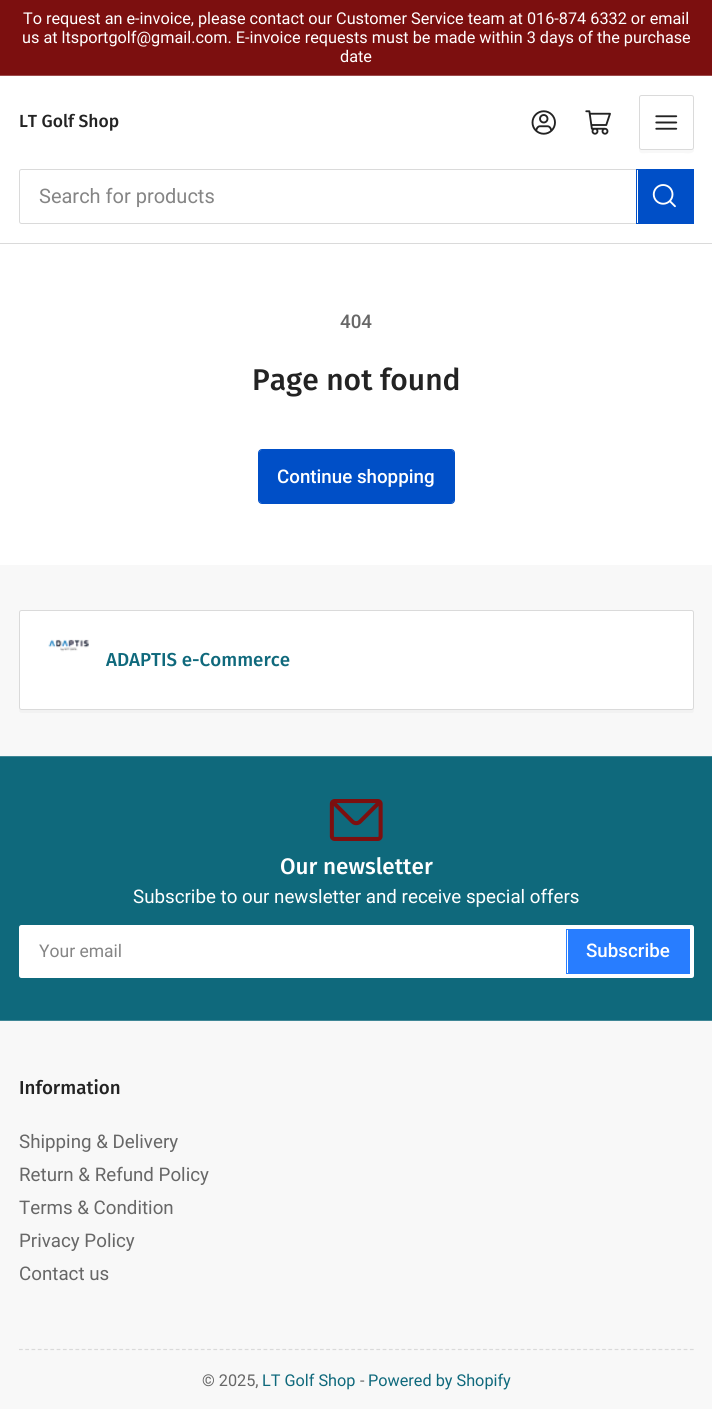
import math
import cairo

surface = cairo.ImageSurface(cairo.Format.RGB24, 712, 1409)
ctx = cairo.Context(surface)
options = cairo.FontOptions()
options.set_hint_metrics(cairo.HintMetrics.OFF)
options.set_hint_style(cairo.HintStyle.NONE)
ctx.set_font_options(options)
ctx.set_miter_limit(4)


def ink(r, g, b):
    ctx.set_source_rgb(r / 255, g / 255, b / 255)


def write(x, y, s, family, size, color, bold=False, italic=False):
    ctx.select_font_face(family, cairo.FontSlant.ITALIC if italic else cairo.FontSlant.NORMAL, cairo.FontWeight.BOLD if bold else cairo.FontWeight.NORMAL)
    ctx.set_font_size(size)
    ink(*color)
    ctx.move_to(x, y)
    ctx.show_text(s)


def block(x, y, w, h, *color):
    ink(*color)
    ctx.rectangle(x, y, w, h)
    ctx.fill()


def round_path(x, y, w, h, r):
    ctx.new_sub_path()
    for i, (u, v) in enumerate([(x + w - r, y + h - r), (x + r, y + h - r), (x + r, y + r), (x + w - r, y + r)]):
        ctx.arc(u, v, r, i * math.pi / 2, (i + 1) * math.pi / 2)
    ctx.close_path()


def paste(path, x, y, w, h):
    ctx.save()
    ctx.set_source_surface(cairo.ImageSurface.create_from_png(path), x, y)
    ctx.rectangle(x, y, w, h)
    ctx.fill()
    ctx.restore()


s1 = dict(family="Roboto", size=16.25, color=(255, 255, 255))
s2 = dict(family="Fira Sans Medium", size=17.5, color=(35, 35, 35))
s3 = dict(family="Roboto", size=20, color=(133, 133, 133))
s4 = dict(family="Roboto Medium", size=18.75, color=(103, 103, 103))
s5 = dict(family="Fira Sans Medium", size=30, color=(35, 35, 35))
s6 = dict(family="Roboto Medium", size=18.75, color=(255, 255, 255))
s7 = dict(family="Fira Sans Medium", size=18.75, color=(15, 105, 124))
s8 = dict(family="Fira Sans Medium", size=22.5, color=(255, 255, 255))
s9 = dict(family="Roboto", size=18.75, color=(255, 255, 255))
s10 = dict(family="Roboto", size=17.5, color=(133, 133, 133))
s11 = dict(family="Fira Sans Medium", size=18.75, color=(35, 35, 35))
s12 = dict(family="Roboto", size=18.75, color=(103, 103, 103))
s13 = dict(family="Roboto", size=16.25, color=(103, 103, 103))
s14 = dict(family="Roboto", size=16.25, color=(15, 105, 124))

ink(255, 255, 255)
ctx.paint()
block(0, 0, 712, 75, 124, 15, 15)
block(0, 75, 712, 1, 157, 75, 75)
write(23, 24, "To request an e-invoice, please contact our Customer Service team at 016-874 6332 or email", **s1)
write(22, 43, "us at ltsportgolf@gmail.com. E-invoice requests must be made within 3 days of the purchase", **s1)
write(340, 62, "date", **s1)
block(0, 243, 712, 1, 218, 218, 218)
write(19, 127, "LT Golf Shop", **s2)
paste("pic1.png", 531, 110, 25, 25)
paste("pic2.png", 585, 110, 26, 25)
ink(248, 248, 248)
ctx.new_path()
ctx.move_to(639, 149)
ctx.curve_to(639, 155, 643, 153, 650, 153)
ctx.line_to(683, 153)
ctx.curve_to(684, 153, 694, 155, 694, 150)
ctx.line_to(694, 99)
ctx.line_to(694, 148)
ctx.curve_to(694, 149, 693, 150, 691, 150)
ctx.line_to(641, 150)
ctx.curve_to(640, 150, 639, 149, 639, 149)
ctx.close_path()
ctx.fill()
round_path(639.5, 95.5, 54, 54, 2)
ink(218, 218, 218)
ctx.set_line_width(1)
ctx.stroke()
paste("pic3.png", 655, 115, 23, 15)
round_path(19.5, 169.5, 674, 54, 2)
ctx.stroke()
write(39, 203, "Search for products", **s3)
ctx.rectangle(636.5, 169.5, 57, 54)
ink(0, 79, 199)
ctx.stroke()
block(638, 170, 55, 53, 0, 79, 199)
paste("pic4.png", 652, 184, 24, 24)
write(340, 328, "404", **s4)
write(252, 390, "Page not found", **s5)
round_path(258.5, 449.5, 196, 54, 3.5)
ink(0, 79, 199)
ctx.stroke()
round_path(259, 450, 195, 53, 2.5)
ctx.fill()
write(277, 483, "Continue shopping", **s6)
block(0, 565, 712, 191, 248, 248, 248)
ink(242, 242, 242)
ctx.new_path()
ctx.move_to(19, 709)
ctx.line_to(19, 710)
ctx.curve_to(19, 712, 20, 713, 22, 713)
ctx.line_to(692, 713)
ctx.curve_to(693, 713, 694, 712, 694, 710)
ctx.line_to(694, 614)
ctx.line_to(694, 708)
ctx.curve_to(694, 709, 693, 710, 691, 710)
ctx.line_to(21, 710)
ctx.curve_to(20, 710, 19, 709, 19, 709)
ctx.close_path()
ctx.fill()
ink(255, 255, 255)
round_path(19.5, 610.5, 674, 99, 2)
ctx.fill_preserve()
ink(218, 218, 218)
ctx.stroke()
paste("pic5.png", 48, 639, 41, 13)
write(106, 666, "ADAPTIS e-Commerce", **s7)
block(0, 757, 712, 263, 15, 105, 124)
block(0, 756, 712, 1, 63, 135, 150)
block(0, 1020, 712, 1, 63, 135, 150)
paste("pic6.png", 329, 799, 54, 42)
write(280, 874, "Our newsletter", **s8)
write(133, 903, "Subscribe to our newsletter and receive special offers", **s9)
round_path(19, 925, 675, 53, 2.5)
ctx.fill()
round_path(19.5, 925.5, 674, 52, 2)
ctx.set_source_rgba(1, 1, 1, 0.2)
ctx.stroke()
write(39, 957, "Your email", **s10)
ctx.rectangle(566.5, 929.5, 123, 44)
ink(40, 125, 255)
ctx.stroke()
block(568, 930, 121, 43, 40, 125, 255)
write(586, 957, "Subscribe", **s6)
block(0, 1021, 712, 388, 248, 248, 248)
write(19, 1094, "Information", **s11)
write(19, 1148, "Shipping & Delivery", **s12)
write(19, 1181, "Return & Refund Policy", **s12)
write(19, 1214, "Terms & Condition", **s12)
write(19, 1247, "Privacy Policy", **s12)
write(19, 1280, "Contact us", **s12)
ctx.new_path()
ctx.move_to(19, 1349.5)
ctx.line_to(694, 1349.5)
ink(218, 218, 218)
ctx.set_line_width(1.2)
ctx.set_dash([3.75, 2.52])
ctx.stroke()
write(202, 1386, "© 2025,", **s13)
write(262, 1386, "LT Golf Shop", **s14)
write(360, 1386, "-", **s13)
write(368, 1386, "Powered by Shopify", **s14)
surface.write_to_png("screenshot.png")
